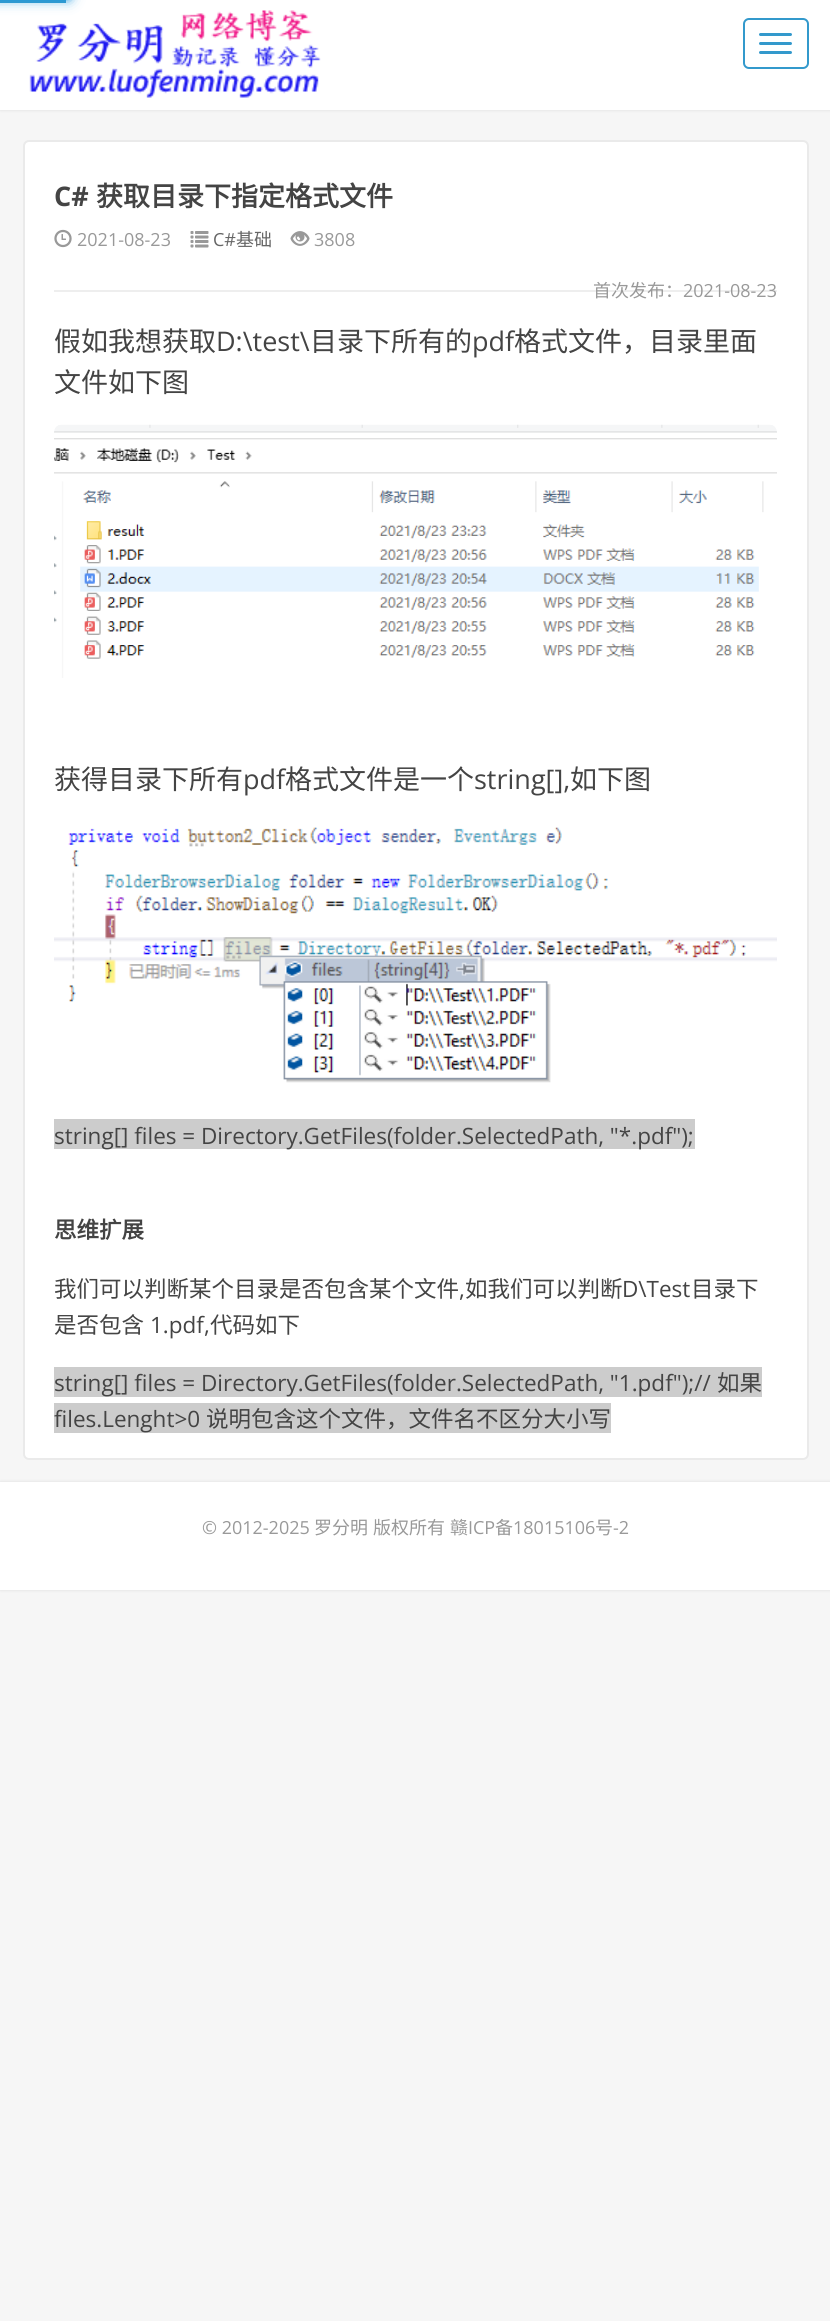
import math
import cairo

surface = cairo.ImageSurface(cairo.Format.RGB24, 830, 2321)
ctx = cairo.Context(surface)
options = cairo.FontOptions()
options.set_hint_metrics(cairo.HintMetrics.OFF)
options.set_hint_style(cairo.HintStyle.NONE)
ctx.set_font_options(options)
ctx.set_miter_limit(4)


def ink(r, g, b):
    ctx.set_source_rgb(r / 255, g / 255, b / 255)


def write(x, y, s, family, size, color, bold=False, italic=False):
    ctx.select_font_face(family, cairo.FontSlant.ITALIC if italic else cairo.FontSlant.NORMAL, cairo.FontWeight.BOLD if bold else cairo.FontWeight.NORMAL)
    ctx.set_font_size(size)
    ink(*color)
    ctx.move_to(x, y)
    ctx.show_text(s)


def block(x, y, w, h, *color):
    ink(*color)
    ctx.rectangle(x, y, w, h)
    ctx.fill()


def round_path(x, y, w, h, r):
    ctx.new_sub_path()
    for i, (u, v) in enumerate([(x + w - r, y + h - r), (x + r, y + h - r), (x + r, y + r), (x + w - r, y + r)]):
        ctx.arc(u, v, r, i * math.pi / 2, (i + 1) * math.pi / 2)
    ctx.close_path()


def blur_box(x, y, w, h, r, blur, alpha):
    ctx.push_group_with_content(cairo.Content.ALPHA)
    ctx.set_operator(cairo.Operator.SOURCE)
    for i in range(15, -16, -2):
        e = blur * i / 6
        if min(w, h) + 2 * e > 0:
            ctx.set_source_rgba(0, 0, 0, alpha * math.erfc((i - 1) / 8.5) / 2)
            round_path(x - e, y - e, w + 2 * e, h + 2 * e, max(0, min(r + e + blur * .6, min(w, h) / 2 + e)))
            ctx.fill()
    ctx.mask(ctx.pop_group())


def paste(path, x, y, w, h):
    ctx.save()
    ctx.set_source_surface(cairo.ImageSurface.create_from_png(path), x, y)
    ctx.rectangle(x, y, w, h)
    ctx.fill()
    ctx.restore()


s1 = dict(family="Open Sans", size=27, color=(68, 68, 68), bold=True)
s2 = dict(family="Noto Sans CJK SC", size=27, color=(68, 68, 68), bold=True)
s3 = dict(family="Open Sans", size=18, color=(153, 153, 153))
s4 = dict(family="Open Sans", size=18, color=(102, 102, 102))
s5 = dict(family="Noto Sans CJK SC", size=18, color=(102, 102, 102))
s6 = dict(family="Noto Sans CJK SC", size=18, color=(153, 153, 153))
s7 = dict(family="Noto Sans CJK SC", size=27, color=(68, 68, 68))
s8 = dict(family="Open Sans", size=27, color=(68, 68, 68))
s9 = dict(family="Open Sans", size=22.5, color=(68, 68, 68))
s10 = dict(family="Noto Sans CJK SC", size=22.5, color=(68, 68, 68), bold=True)
s11 = dict(family="Noto Sans CJK SC", size=22.5, color=(68, 68, 68))

ink(246, 246, 246)
ctx.paint()
ink(0, 0, 0)
blur_box(0, 0, 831, 110, 0, 1.5, 0.1)
block(0, 0, 830, 110, 255, 255, 255)
paste("pic1.png", 29, 10, 292, 88)
round_path(744, 19, 64, 49, 5)
ink(51, 153, 204)
ctx.stroke()
round_path(759, 33, 33, 3, 1.5)
ctx.fill()
round_path(759, 42, 33, 3, 1.5)
ctx.fill()
round_path(759, 51, 33, 3, 1.5)
ctx.fill()
block(0, 0, 66, 3, 51, 153, 204)
ink(34, 153, 221)
blur_box(-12, -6, 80, 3, 0, 4, 1)
blur_box(-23, -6, 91, 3, 0, 7.5, 1)
ink(255, 255, 255)
round_path(24, 141, 784, 1318, 5)
ctx.fill_preserve()
ink(234, 234, 234)
ctx.stroke()
block(54, 290, 723, 2, 238, 238, 238)
write(54, 206, "C#", **s1)
write(96, 206, "获取目录下指定格式文件", **s2)
paste("pic2.png", 54, 229, 18, 19)
write(77, 246, "2021-08-23", **s3)
paste("pic3.png", 190, 231, 19, 17)
write(213, 246, "C#", **s4)
write(236, 246, "基础", **s5)
paste("pic4.png", 290, 231, 20, 15)
write(314, 246, "3808", **s3)
write(593, 297, "首次发布：", **s6)
write(683, 297, "2021-08-23", **s3)
write(54, 351, "假如我想获取", **s7)
write(216, 351, "D:\\test\\", **s8)
write(310, 351, "目录下所有的", **s7)
write(472, 351, "pdf", **s8)
write(514, 351, "格式文件，目录里面", **s7)
write(54, 392, "文件如下图", **s7)
paste("pic5.png", 54, 424, 723, 254)
write(54, 789, "获得目录下所有", **s7)
write(243, 789, "pdf", **s8)
write(285, 789, "格式文件是一个", **s7)
write(474, 789, "string[],", **s8)
write(570, 789, "如下图", **s7)
paste("pic6.png", 54, 827, 723, 256)
block(54, 1119, 641, 30, 204, 204, 204)
write(54, 1144, "string[] files = Directory.GetFiles(folder.SelectedPath, \"*.pdf\");", **s9)
write(54, 1238, "思维扩展", **s10)
write(54, 1297, "我们可以判断某个目录是否包含某个文件", **s11)
write(459, 1297, ",", **s9)
write(465, 1297, "如我们可以判断", **s11)
write(622, 1297, "D\\Test", **s9)
write(691, 1297, "目录下", **s11)
write(54, 1333, "是否包含", **s11)
write(150, 1333, "1.pdf,", **s9)
write(210, 1333, "代码如下", **s11)
block(54, 1367, 708, 30, 204, 204, 204)
write(54, 1391, "string[] files = Directory.GetFiles(folder.SelectedPath, \"1.pdf\");//", **s9)
write(717, 1391, "如果", **s11)
block(54, 1403, 557, 30, 204, 204, 204)
write(54, 1427, "files.Lenght>0", **s9)
write(206, 1427, "说明包含这个文件，文件名不区分大小写", **s11)
ink(0, 0, 0)
blur_box(0, 1482, 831, 108, 0, 1.5, 0.1)
block(0, 1482, 830, 108, 255, 255, 255)
write(202, 1534, "© 2012-2025", **s3)
write(314, 1534, "罗分明", **s6)
write(373, 1534, "版权所有", **s6)
write(450, 1534, "赣", **s6)
write(468, 1534, "ICP", **s3)
write(495, 1534, "备", **s6)
write(513, 1534, "18015106", **s3)
write(595, 1534, "号", **s6)
write(613, 1534, "-2", **s3)
surface.write_to_png("screenshot.png")
